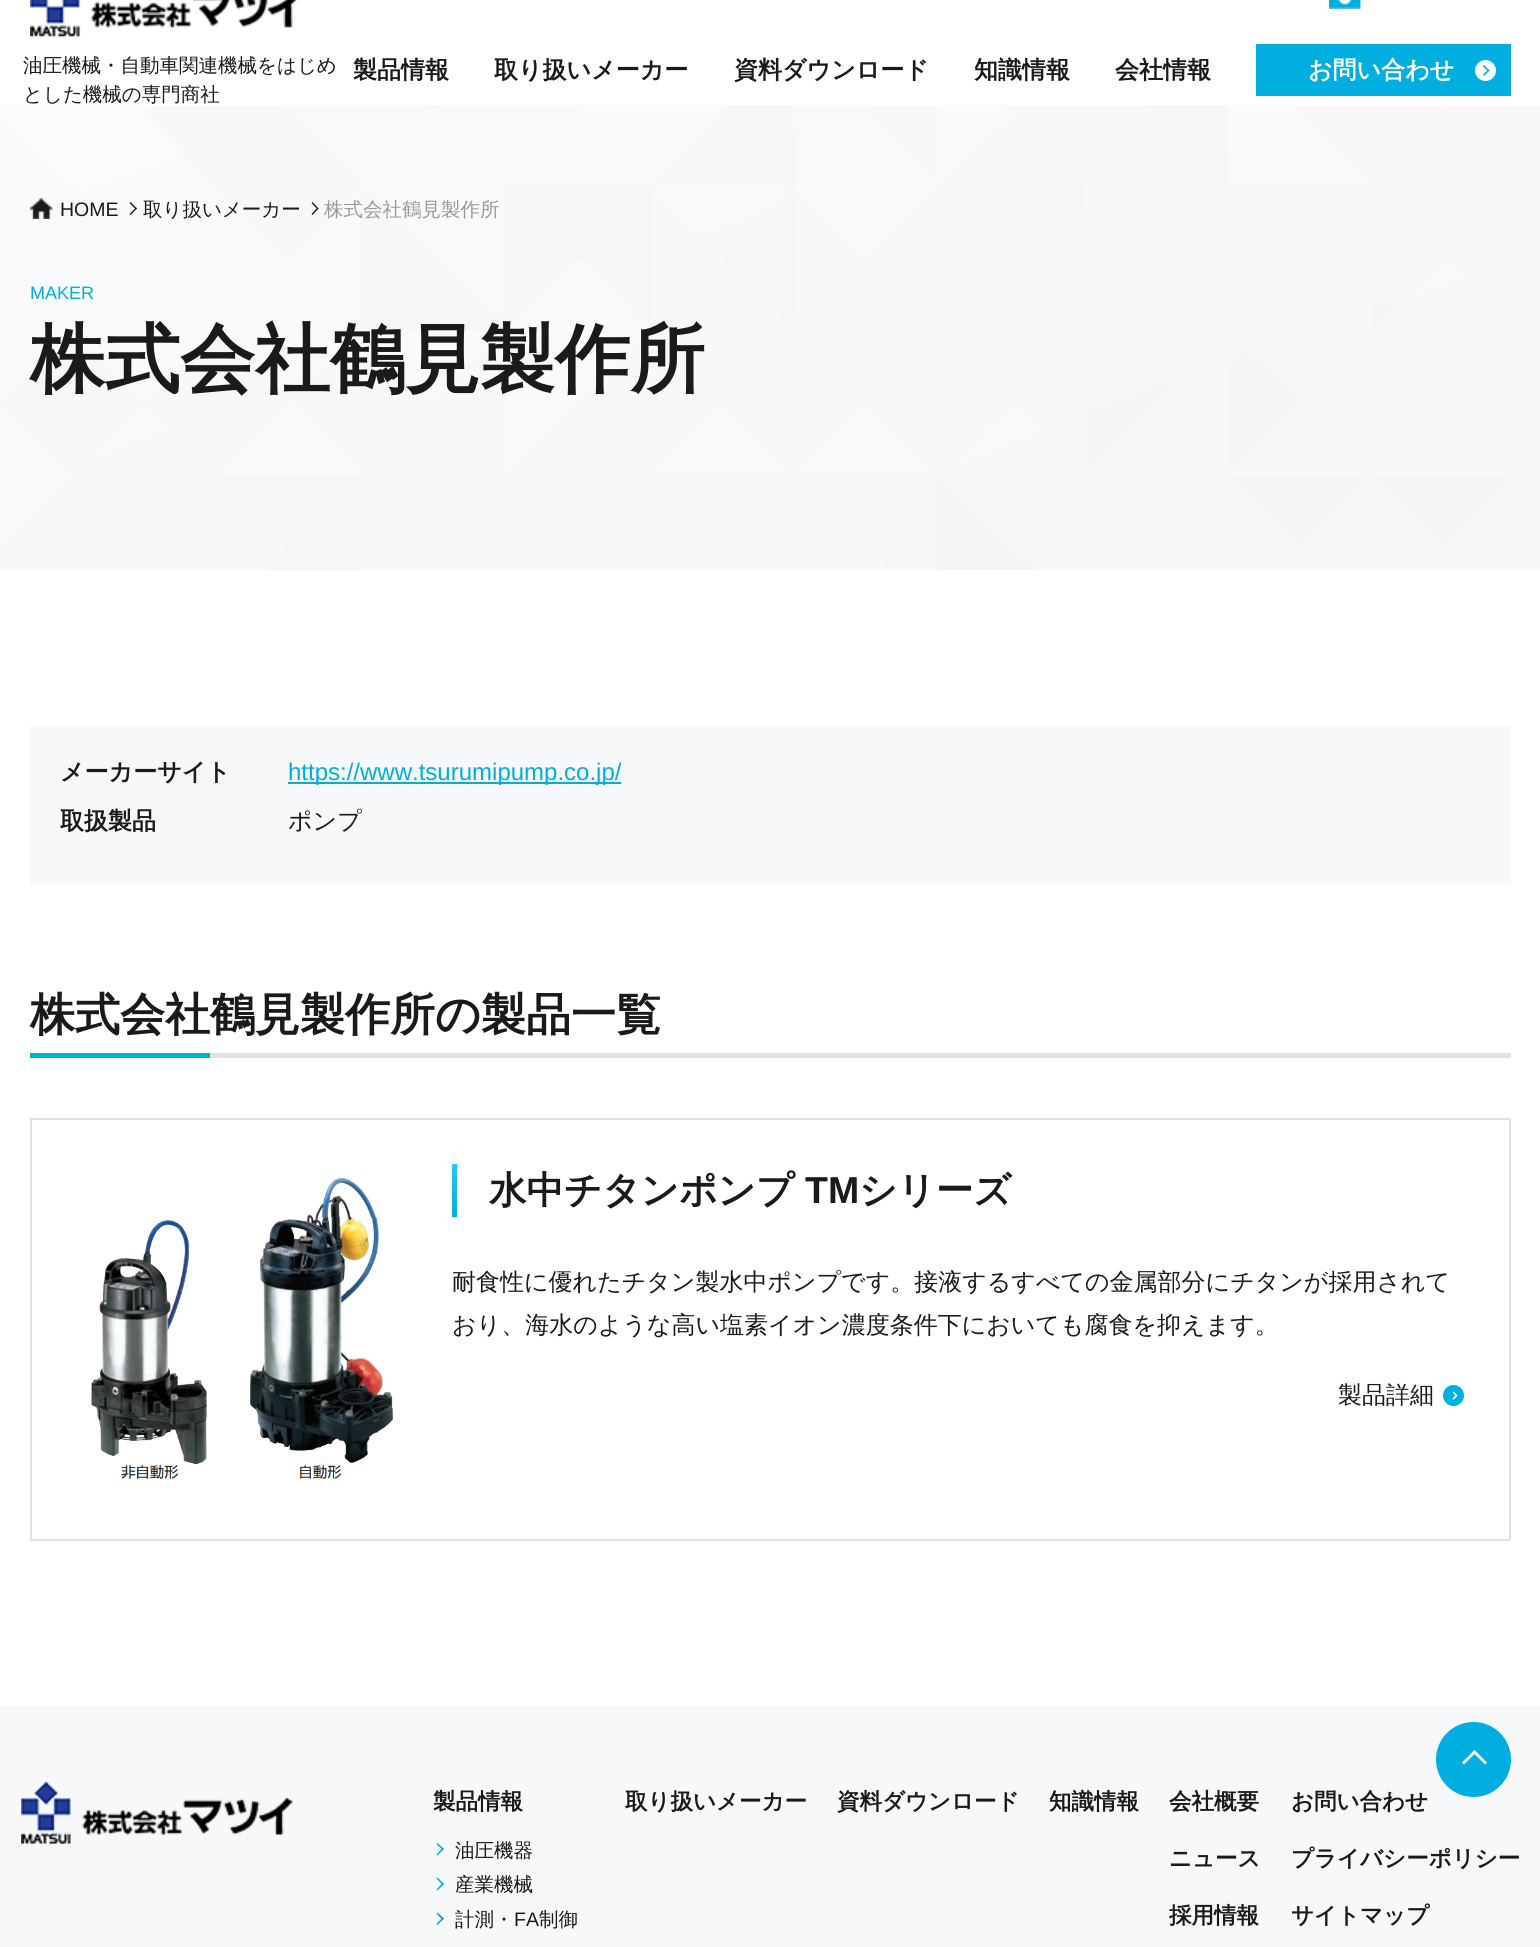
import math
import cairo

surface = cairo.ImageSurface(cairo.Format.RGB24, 1540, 1947)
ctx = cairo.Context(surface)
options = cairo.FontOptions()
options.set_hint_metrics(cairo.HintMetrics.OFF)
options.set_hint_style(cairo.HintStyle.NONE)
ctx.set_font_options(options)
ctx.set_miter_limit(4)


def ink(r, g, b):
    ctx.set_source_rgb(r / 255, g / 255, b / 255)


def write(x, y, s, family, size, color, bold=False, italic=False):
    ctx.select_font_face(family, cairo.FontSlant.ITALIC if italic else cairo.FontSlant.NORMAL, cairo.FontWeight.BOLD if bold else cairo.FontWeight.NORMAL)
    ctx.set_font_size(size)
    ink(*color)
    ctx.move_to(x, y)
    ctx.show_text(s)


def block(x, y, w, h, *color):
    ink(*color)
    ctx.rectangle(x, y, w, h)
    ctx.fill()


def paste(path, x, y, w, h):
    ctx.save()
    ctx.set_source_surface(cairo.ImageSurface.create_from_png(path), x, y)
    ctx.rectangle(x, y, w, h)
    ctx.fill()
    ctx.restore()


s1 = dict(family="WenQuanYi Zen Hei Medium", size=19.5, color=(26, 26, 26))
s2 = dict(family="WenQuanYi Zen Hei", size=24, color=(26, 26, 26), bold=True)
s3 = dict(family="WenQuanYi Zen Hei", size=24, color=(255, 255, 255), bold=True)
s4 = dict(family="Liberation Sans", size=19.5, color=(26, 26, 26))
s5 = dict(family="WenQuanYi Zen Hei Medium", size=19.5, color=(153, 153, 153))
s6 = dict(family="Liberation Sans", size=18, color=(0, 174, 224))
s7 = dict(family="WenQuanYi Zen Hei", size=75, color=(26, 26, 26), bold=True)
s8 = dict(family="Liberation Sans", size=24, color=(0, 174, 224))
s9 = dict(family="WenQuanYi Zen Hei Medium", size=24, color=(26, 26, 26))
s10 = dict(family="WenQuanYi Zen Hei", size=45, color=(26, 26, 26), bold=True)
s11 = dict(family="WenQuanYi Zen Hei", size=37.5, color=(26, 26, 26), bold=True)
s12 = dict(family="Liberation Sans", size=37.5, color=(26, 26, 26), bold=True)
s13 = dict(family="WenQuanYi Zen Hei", size=22.5, color=(26, 26, 26), bold=True)

ink(255, 255, 255)
ctx.paint()
paste("pic1.png", 30, 0, 268, 38)
write(23, 72, "油圧機械・自動車関連機械をはじめ", **s1)
write(23, 101, "とした機械の専門商社", **s1)
paste("pic2.png", 1329, 0, 32, 9)
write(353, 78, "製品情報", **s2)
write(494, 78, "取り扱いメーカー", **s2)
write(734, 78, "資料ダウンロード", **s2)
write(974, 78, "知識情報", **s2)
write(1115, 78, "会社情報", **s2)
block(1256, 44, 255, 52, 0, 174, 224)
write(1308, 78, "お問い合わせ", **s3)
ctx.new_path()
ctx.arc(1485.5, 70.5, 10.5, 0, 2 * math.pi)
ctx.fill()
ink(0, 174, 224)
ctx.new_path()
ctx.move_to(1484, 65)
ctx.line_to(1489.5, 70.5)
ctx.line_to(1488.5, 71.5)
ctx.line_to(1483, 66.5)
ctx.close_path()
ctx.fill()
ctx.new_path()
ctx.move_to(1488.5, 69.5)
ctx.line_to(1489.5, 70.5)
ctx.line_to(1484, 76)
ctx.line_to(1483, 74.5)
ctx.close_path()
ctx.fill()
paste("pic3.png", 0, 105, 1540, 465)
paste("pic4.png", 30, 198, 23, 21)
write(60, 216, "HOME", **s4)
ctx.new_path()
ctx.move_to(130.5, 202)
ctx.line_to(137, 208.5)
ctx.line_to(136, 209.5)
ctx.line_to(129.5, 203)
ctx.close_path()
ctx.fill()
ctx.new_path()
ctx.move_to(136, 207.5)
ctx.line_to(137, 208.5)
ctx.line_to(130.5, 215)
ctx.line_to(129.5, 214)
ctx.close_path()
ctx.fill()
write(143, 216, "取り扱いメーカー", **s1)
ctx.new_path()
ctx.move_to(312.5, 202)
ctx.line_to(318.5, 208.5)
ctx.line_to(317.5, 209.5)
ctx.line_to(311.5, 203)
ctx.close_path()
ctx.fill()
ctx.new_path()
ctx.move_to(317.5, 207.5)
ctx.line_to(318.5, 208.5)
ctx.line_to(312.5, 215)
ctx.line_to(311.5, 214)
ctx.close_path()
ctx.fill()
write(324, 216, "株式会社鶴見製作所", **s5)
write(30, 299, "MAKER", **s6)
write(30, 385, "株式会社鶴見製作所", **s7)
block(30, 726, 1481, 158, 246, 248, 249)
write(60, 780, "メーカーサイト", **s2)
block(288, 782, 333, 2, 0, 174, 224)
write(288, 780, "https://www.tsurumipump.co.jp/", **s8)
write(60, 829, "取扱製品", **s2)
write(288, 829, "ポンプ", **s9)
write(30, 1030, "株式会社鶴見製作所の製品一覧", **s10)
block(30, 1053, 180, 5, 0, 174, 224)
block(210, 1053, 1301, 5, 226, 226, 226)
ctx.rectangle(31, 1119, 1479, 421)
ctx.stroke()
paste("pic5.png", 91, 1177, 302, 302)
gradient = cairo.LinearGradient(454, 1164, 454, 1217)
gradient.add_color_stop_rgba(0, 0.125, 0.796, 0.984, 1)
gradient.add_color_stop_rgba(1, 0, 0.682, 0.878, 1)
ctx.set_source(gradient)
ctx.rectangle(452, 1164, 5, 53)
ctx.fill()
write(489, 1203, "水中チタンポンプ", **s11)
write(805, 1203, "TM", **s12)
write(859, 1203, "シリーズ", **s11)
write(452, 1290, "耐食性に優れたチタン製水中ポンプです。接液するすべての金属部分にチタンが採用されて", **s9)
write(452, 1333, "おり、海水のような高い塩素イオン濃度条件下においても腐食を抑えます。", **s9)
write(1338, 1403, "製品詳細", **s9)
ink(0, 174, 224)
ctx.new_path()
ctx.arc(1453.5, 1395.5, 10.5, 0, 2 * math.pi)
ctx.fill()
ink(255, 255, 255)
ctx.new_path()
ctx.move_to(1453.5, 1391.5)
ctx.line_to(1457.5, 1395.5)
ctx.line_to(1456.5, 1396.5)
ctx.line_to(1452.5, 1392.5)
ctx.close_path()
ctx.fill()
ctx.new_path()
ctx.move_to(1456.5, 1394.5)
ctx.line_to(1457.5, 1395.5)
ctx.line_to(1453.5, 1400)
ctx.line_to(1452.5, 1398.5)
ctx.close_path()
ctx.fill()
block(0, 1706, 1540, 241, 246, 248, 249)
ink(0, 174, 224)
ctx.arc(1473.5, 1759.5, 37.5, 0, 2 * math.pi)
ctx.fill()
ink(255, 255, 255)
ctx.new_path()
ctx.move_to(1474.5, 1750)
ctx.line_to(1487, 1762.5)
ctx.line_to(1485, 1764.5)
ctx.line_to(1472.5, 1752)
ctx.close_path()
ctx.fill()
ctx.new_path()
ctx.move_to(1474.5, 1750)
ctx.line_to(1476.5, 1752)
ctx.line_to(1464, 1764.5)
ctx.line_to(1462, 1762.5)
ctx.close_path()
ctx.fill()
paste("pic6.png", 21, 1781, 272, 64)
write(433, 1809, "製品情報", **s13)
ink(0, 174, 224)
ctx.new_path()
ctx.move_to(437.5, 1843)
ctx.line_to(444, 1849)
ctx.line_to(442.5, 1850)
ctx.line_to(436.5, 1844)
ctx.close_path()
ctx.fill()
ctx.new_path()
ctx.move_to(442.5, 1848)
ctx.line_to(444, 1849)
ctx.line_to(437.5, 1855.5)
ctx.line_to(436.5, 1854.5)
ctx.close_path()
ctx.fill()
write(455, 1857, "油圧機器", **s1)
ink(0, 174, 224)
ctx.new_path()
ctx.move_to(437.5, 1877.5)
ctx.line_to(444, 1884)
ctx.line_to(442.5, 1885)
ctx.line_to(436.5, 1878.5)
ctx.close_path()
ctx.fill()
ctx.new_path()
ctx.move_to(442.5, 1883)
ctx.line_to(444, 1884)
ctx.line_to(437.5, 1890.5)
ctx.line_to(436.5, 1889.5)
ctx.close_path()
ctx.fill()
write(455, 1891, "産業機械", **s1)
ink(0, 174, 224)
ctx.new_path()
ctx.move_to(437.5, 1912.5)
ctx.line_to(444, 1918.5)
ctx.line_to(442.5, 1920)
ctx.line_to(436.5, 1913.5)
ctx.close_path()
ctx.fill()
ctx.new_path()
ctx.move_to(442.5, 1917.5)
ctx.line_to(444, 1918.5)
ctx.line_to(437.5, 1925)
ctx.line_to(436.5, 1924)
ctx.close_path()
ctx.fill()
write(455, 1926, "計測・", **s1)
write(514, 1926, "FA", **s4)
write(539, 1926, "制御", **s1)
write(625, 1809, "取り扱いメーカー", **s13)
write(837, 1809, "資料ダウンロード", **s13)
write(1049, 1809, "知識情報", **s13)
write(1169, 1809, "会社概要", **s13)
write(1169, 1866, "ニュース", **s13)
write(1169, 1923, "採用情報", **s13)
write(1291, 1809, "お問い合わせ", **s13)
write(1291, 1866, "プライバシーポリシー", **s13)
write(1291, 1923, "サイトマップ", **s13)
surface.write_to_png("screenshot.png")
